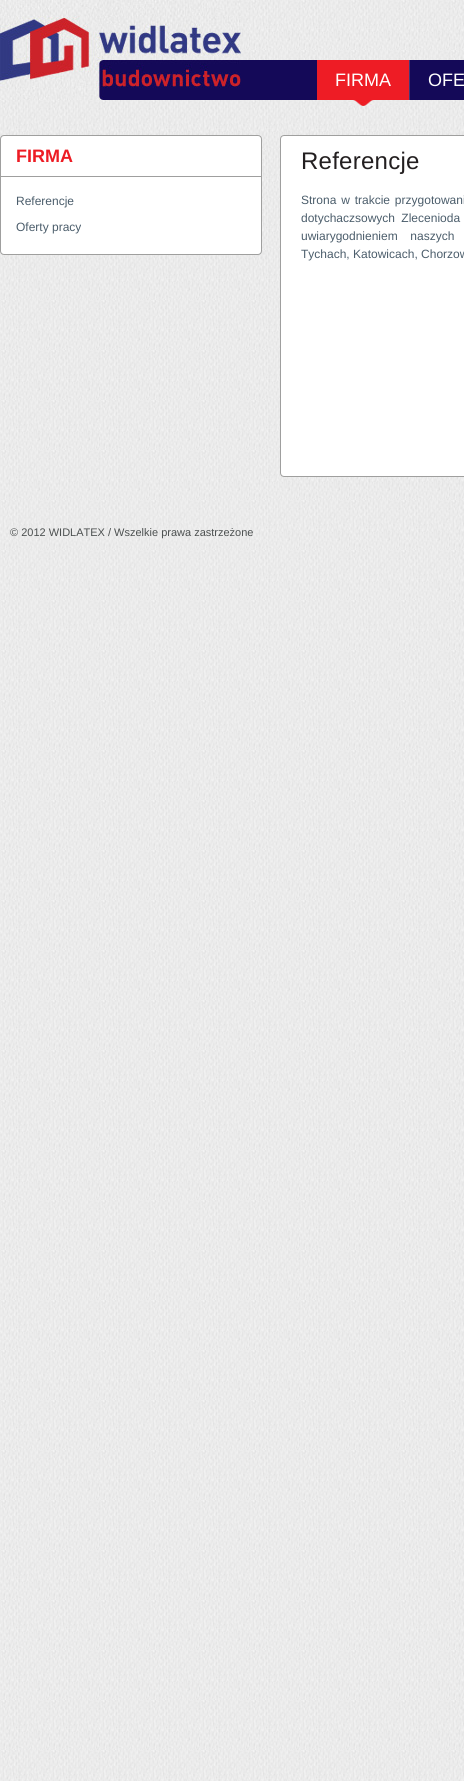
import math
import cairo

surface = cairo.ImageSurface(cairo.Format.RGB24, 464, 1781)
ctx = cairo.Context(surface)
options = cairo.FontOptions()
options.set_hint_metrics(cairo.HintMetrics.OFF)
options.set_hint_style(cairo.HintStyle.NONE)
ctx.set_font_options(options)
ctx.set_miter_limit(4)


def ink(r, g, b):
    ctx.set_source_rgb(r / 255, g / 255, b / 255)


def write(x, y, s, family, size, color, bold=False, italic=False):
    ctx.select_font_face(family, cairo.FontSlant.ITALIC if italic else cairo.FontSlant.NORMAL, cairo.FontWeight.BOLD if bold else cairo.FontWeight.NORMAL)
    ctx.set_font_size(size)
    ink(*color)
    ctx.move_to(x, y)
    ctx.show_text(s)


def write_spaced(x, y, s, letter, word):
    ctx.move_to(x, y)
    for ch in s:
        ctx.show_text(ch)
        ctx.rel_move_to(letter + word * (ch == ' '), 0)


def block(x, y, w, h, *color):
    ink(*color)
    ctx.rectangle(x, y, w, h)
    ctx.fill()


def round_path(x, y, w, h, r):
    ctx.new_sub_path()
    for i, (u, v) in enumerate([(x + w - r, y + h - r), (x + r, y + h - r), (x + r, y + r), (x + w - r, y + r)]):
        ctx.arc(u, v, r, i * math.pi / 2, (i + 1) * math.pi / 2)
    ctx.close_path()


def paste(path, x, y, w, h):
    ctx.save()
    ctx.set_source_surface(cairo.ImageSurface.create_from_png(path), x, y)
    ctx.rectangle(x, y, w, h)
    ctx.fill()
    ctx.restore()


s1 = dict(family="Liberation Sans", size=18, color=(255, 255, 255))
s2 = dict(family="Liberation Sans", size=18, color=(237, 28, 36), bold=True)
s3 = dict(family="Liberation Sans", size=12, color=(75, 93, 107))
s4 = dict(family="Liberation Sans", size=11, color=(76, 80, 80))

ink(255, 255, 255)
ctx.paint()
paste("pic1.png", 0, 0, 464, 1781)
paste("pic2.png", 0, 0, 241, 100)
block(241, 60, 223, 40, 20, 9, 88)
paste("pic3.png", 317, 60, 93, 46)
block(409, 60, 1, 40, 67, 58, 121)
write(335, 86, "FIRMA", **s1)
write(428, 86, "OFE", **s1)
round_path(0.5, 135.5, 261, 119, 3.5)
ctx.fill_preserve()
ink(159, 159, 158)
ctx.set_line_width(1)
ctx.stroke()
block(1, 176, 260, 1, 159, 159, 158)
write(16, 162, "FIRMA", **s2)
write(16, 205, "Referencje", **s3)
write(16, 231, "Oferty pracy", **s3)
ink(255, 255, 255)
ctx.new_path()
ctx.move_to(284, 135)
ctx.line_to(464, 135)
ctx.line_to(464, 477)
ctx.line_to(284, 477)
ctx.curve_to(282, 477, 280, 475, 280, 473)
ctx.line_to(280, 139)
ctx.curve_to(280, 137, 282, 135, 284, 135)
ctx.close_path()
ctx.fill()
round_path(280.5, 135.5, 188, 341, 3.5)
ink(159, 159, 158)
ctx.stroke()
ctx.set_font_size(24)
ink(35, 31, 32)
write_spaced(301, 169, "Referencje", 0.25, 0)
ctx.set_font_size(12)
ink(75, 93, 107)
write_spaced(301, 204, "Strona w trakcie przygotowani", 0, 1.5)
write_spaced(301, 222, "dotychaczsowych Zlecenioda", 0, 3)
write_spaced(301, 240, "uwiarygodnieniem  naszych", 0, 3)
write(301, 258, "Tychach, Katowicach, Chorzow", **s3)
write(10, 536, "© 2012 WIDLATEX / Wszelkie prawa zastrzeżone", **s4)
surface.write_to_png("screenshot.png")
